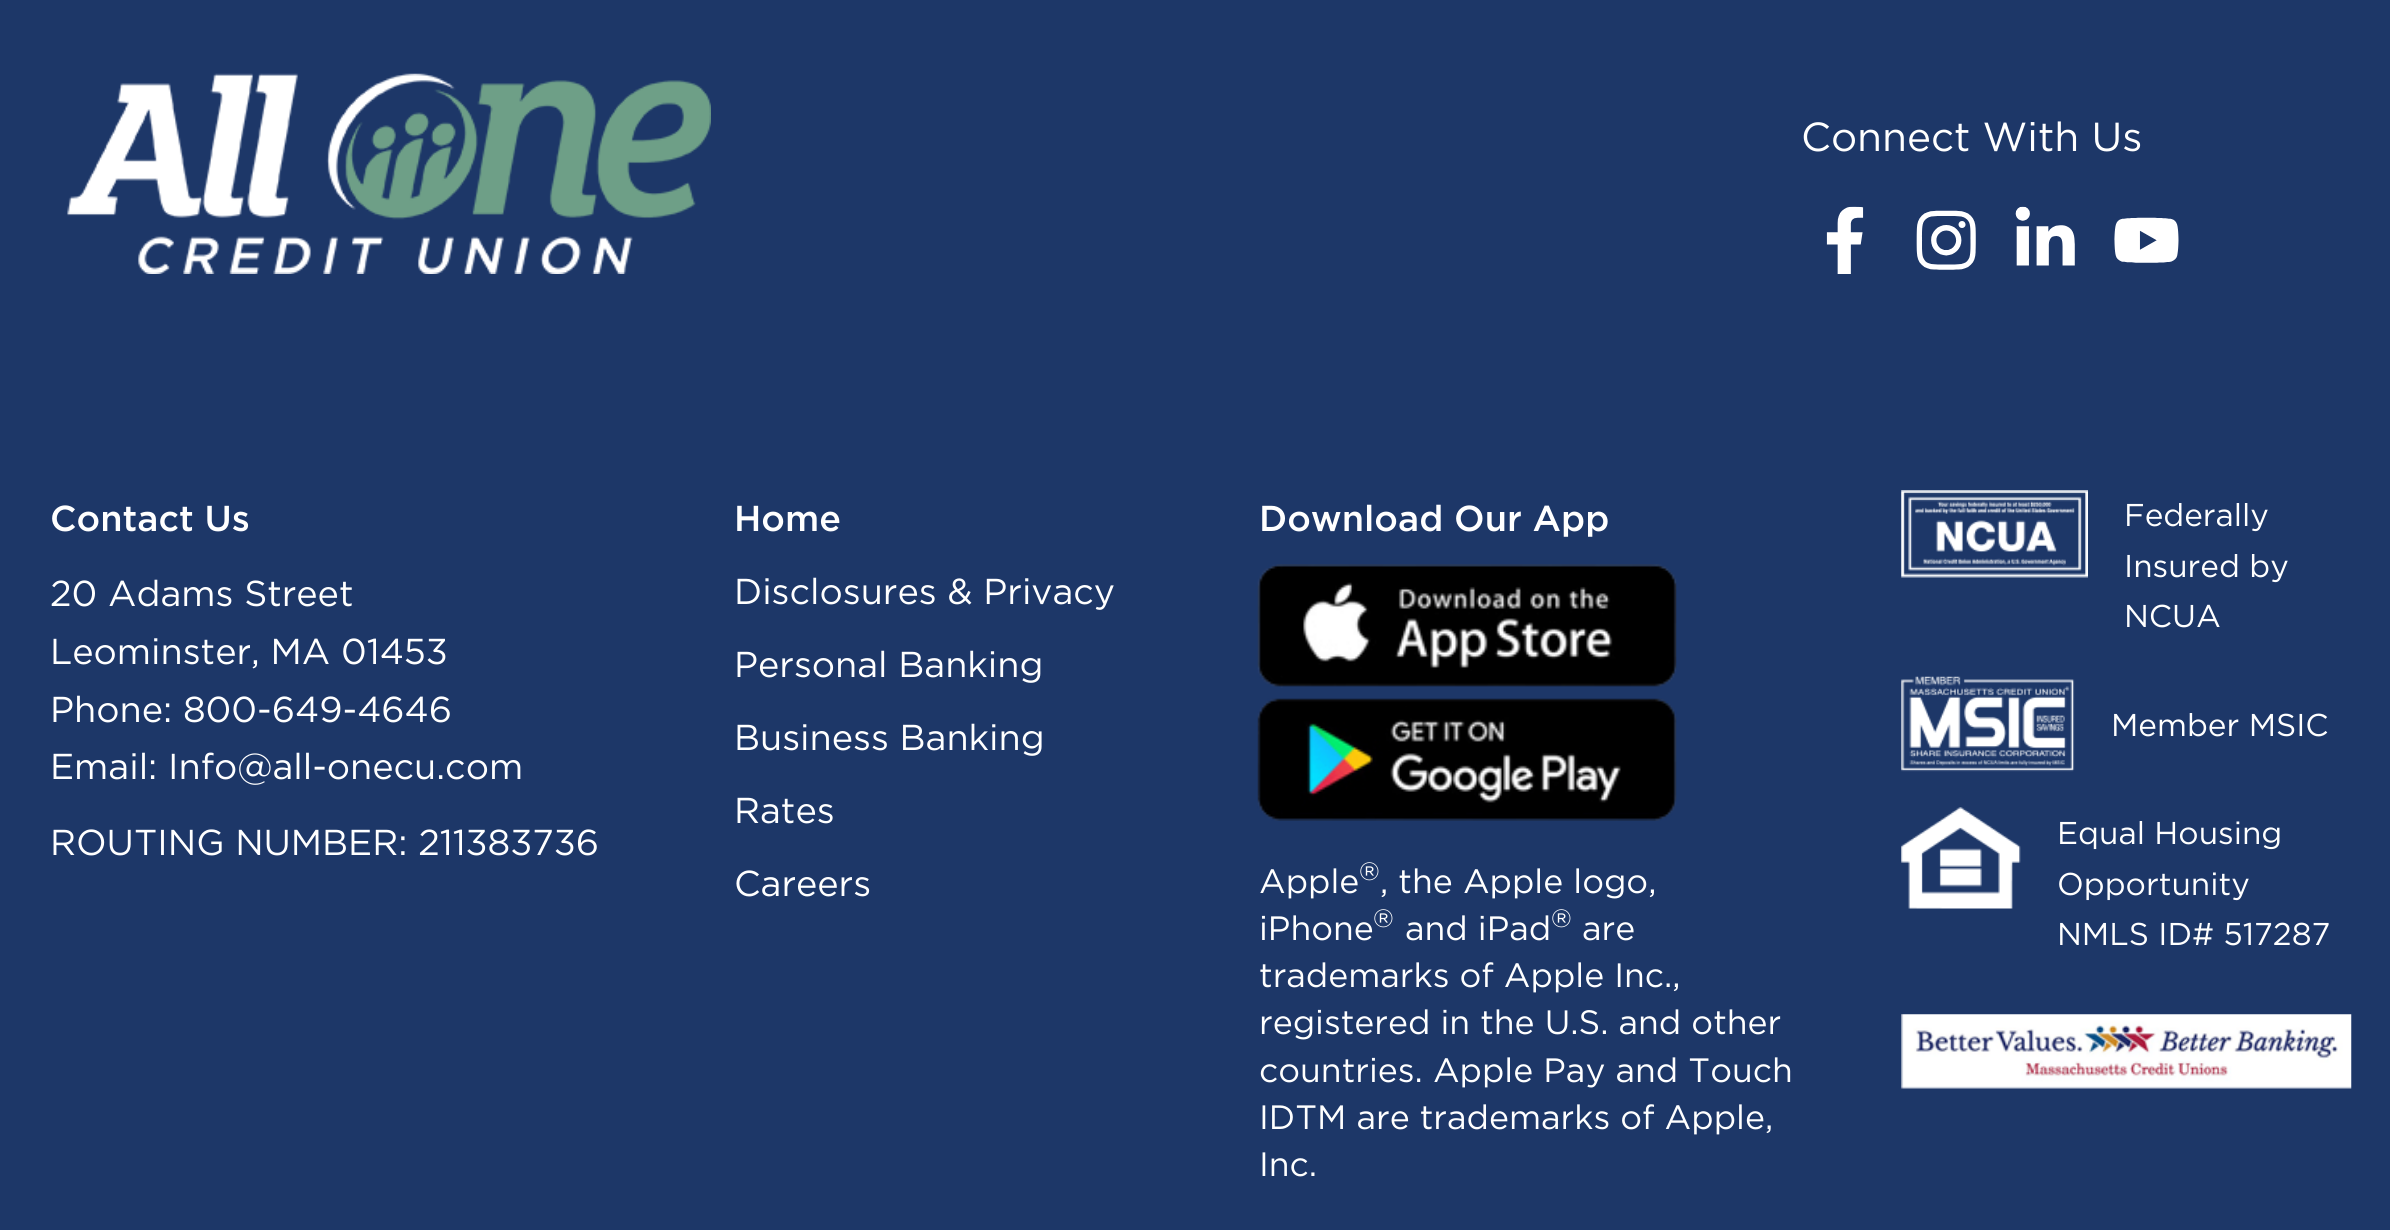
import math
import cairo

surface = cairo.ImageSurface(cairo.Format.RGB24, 2390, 1230)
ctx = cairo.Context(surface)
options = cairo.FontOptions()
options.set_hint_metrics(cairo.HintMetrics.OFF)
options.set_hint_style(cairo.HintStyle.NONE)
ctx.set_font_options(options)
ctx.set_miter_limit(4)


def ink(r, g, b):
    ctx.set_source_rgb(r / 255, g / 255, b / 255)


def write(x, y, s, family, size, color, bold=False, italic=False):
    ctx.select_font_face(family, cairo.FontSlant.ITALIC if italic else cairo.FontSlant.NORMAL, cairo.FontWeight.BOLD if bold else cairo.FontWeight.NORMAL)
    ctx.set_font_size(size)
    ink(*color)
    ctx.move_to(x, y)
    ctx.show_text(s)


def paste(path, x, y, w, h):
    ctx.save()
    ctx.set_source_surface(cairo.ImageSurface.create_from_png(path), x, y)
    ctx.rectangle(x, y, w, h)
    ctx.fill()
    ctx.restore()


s1 = dict(family="Gotham", size=40.5, color=(255, 255, 255))
s2 = dict(family="Gotham Medium", size=36, color=(255, 255, 255))
s3 = dict(family="Gotham", size=36, color=(255, 255, 255))
s4 = dict(family="Gotham", size=33.75, color=(255, 255, 255))
s5 = dict(family="Gotham", size=25, color=(255, 255, 255))
s6 = dict(family="Gotham", size=31.5, color=(255, 255, 255))

ink(29, 55, 104)
ctx.paint()
paste("pic1.png", 67, 73, 644, 201)
write(1801, 151, "Connect With Us", **s1)
paste("pic2.png", 1826, 206, 38, 68)
paste("pic3.png", 1916, 210, 60, 60)
paste("pic4.png", 2015, 206, 60, 60)
paste("pic5.png", 2114, 217, 65, 46)
write(50, 531, "Contact Us", **s2)
write(50, 606, "20 Adams Street", **s3)
write(50, 664, "Leominster, MA 01453", **s3)
write(50, 722, "Phone: 800-649-4646", **s3)
write(50, 779, "Email: Info@all-onecu.com", **s3)
write(50, 855, "ROUTING NUMBER: 211383736", **s3)
write(734, 531, "Home", **s2)
write(734, 604, "Disclosures & Privacy", **s3)
write(734, 677, "Personal Banking", **s3)
write(734, 750, "Business Banking", **s3)
write(734, 823, "Rates", **s3)
write(734, 896, "Careers", **s3)
write(1259, 531, "Download Our App", **s2)
paste("pic6.png", 1257, 564, 420, 124)
paste("pic7.png", 1257, 698, 420, 123)
write(1259, 893, "Apple", **s4)
write(1359, 880, "®", **s5)
write(1380, 893, ", the Apple logo,", **s4)
write(1259, 940, "iPhone", **s4)
write(1373, 927, "®", **s5)
write(1405, 940, "and iPad", **s4)
write(1551, 927, "®", **s5)
write(1582, 940, "are", **s4)
write(1259, 987, "trademarks of Apple Inc.,", **s4)
write(1259, 1034, "registered in the U.S. and other", **s4)
write(1259, 1082, "countries. Apple Pay and Touch", **s4)
write(1259, 1129, "IDTM are trademarks of Apple,", **s4)
write(1259, 1176, "Inc.", **s4)
paste("pic8.png", 1901, 490, 187, 88)
write(2124, 526, "Federally", **s6)
write(2124, 577, "Insured by", **s6)
write(2124, 627, "NCUA", **s6)
paste("pic9.png", 1901, 676, 174, 96)
write(2111, 736, "Member MSIC", **s6)
paste("pic10.png", 1901, 807, 120, 102)
write(2057, 844, "Equal Housing", **s6)
write(2057, 895, "Opportunity", **s6)
write(2057, 945, "NMLS ID# 517287", **s6)
paste("pic11.png", 1901, 1014, 451, 75)
surface.write_to_png("screenshot.png")
